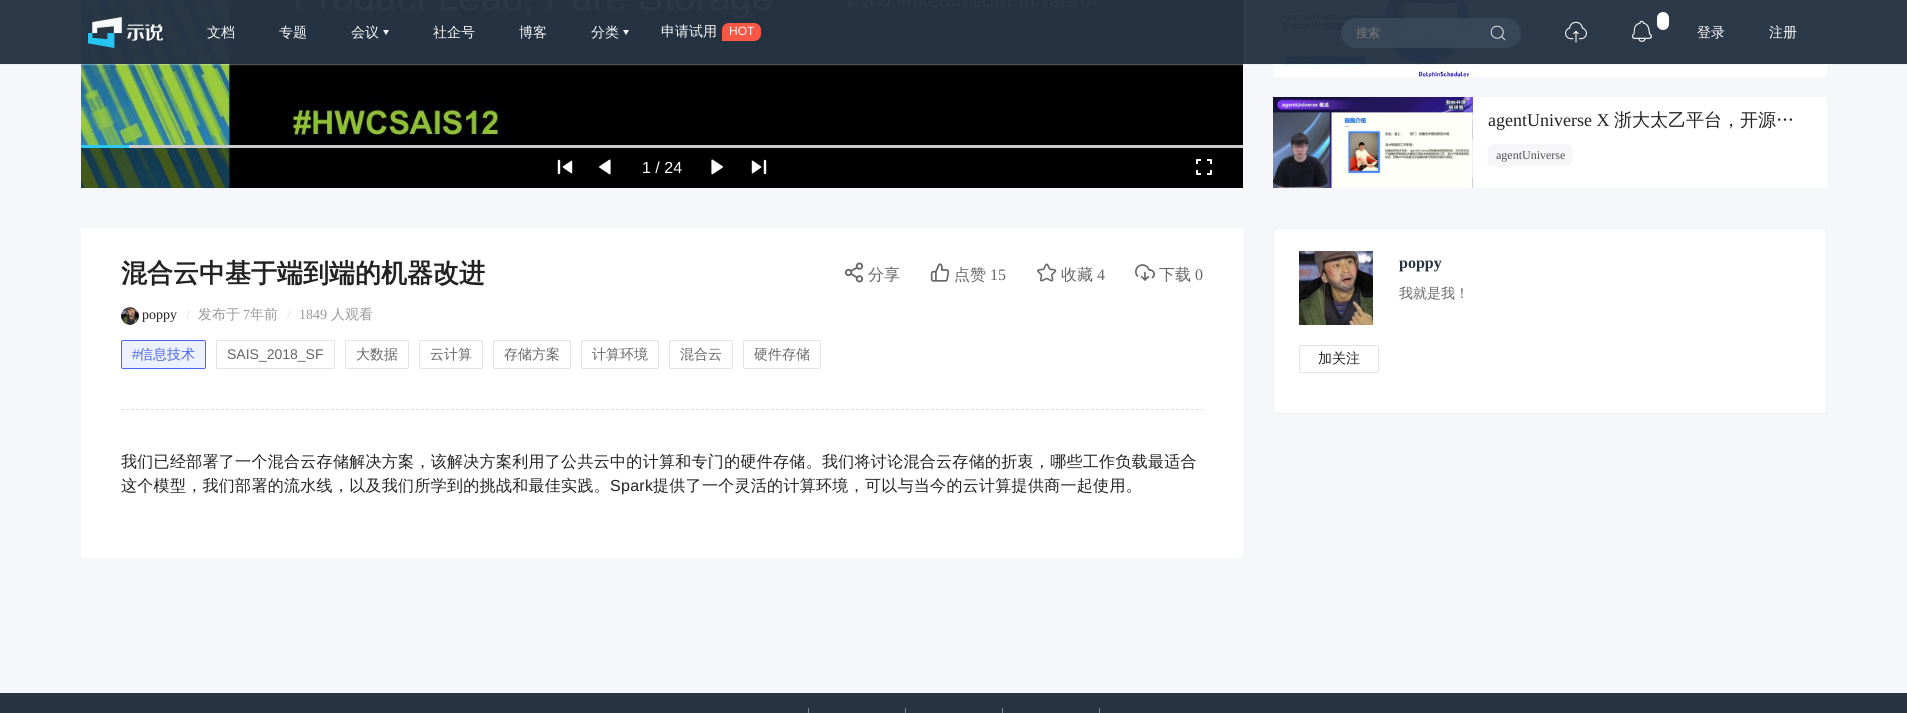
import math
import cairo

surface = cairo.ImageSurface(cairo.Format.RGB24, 1907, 713)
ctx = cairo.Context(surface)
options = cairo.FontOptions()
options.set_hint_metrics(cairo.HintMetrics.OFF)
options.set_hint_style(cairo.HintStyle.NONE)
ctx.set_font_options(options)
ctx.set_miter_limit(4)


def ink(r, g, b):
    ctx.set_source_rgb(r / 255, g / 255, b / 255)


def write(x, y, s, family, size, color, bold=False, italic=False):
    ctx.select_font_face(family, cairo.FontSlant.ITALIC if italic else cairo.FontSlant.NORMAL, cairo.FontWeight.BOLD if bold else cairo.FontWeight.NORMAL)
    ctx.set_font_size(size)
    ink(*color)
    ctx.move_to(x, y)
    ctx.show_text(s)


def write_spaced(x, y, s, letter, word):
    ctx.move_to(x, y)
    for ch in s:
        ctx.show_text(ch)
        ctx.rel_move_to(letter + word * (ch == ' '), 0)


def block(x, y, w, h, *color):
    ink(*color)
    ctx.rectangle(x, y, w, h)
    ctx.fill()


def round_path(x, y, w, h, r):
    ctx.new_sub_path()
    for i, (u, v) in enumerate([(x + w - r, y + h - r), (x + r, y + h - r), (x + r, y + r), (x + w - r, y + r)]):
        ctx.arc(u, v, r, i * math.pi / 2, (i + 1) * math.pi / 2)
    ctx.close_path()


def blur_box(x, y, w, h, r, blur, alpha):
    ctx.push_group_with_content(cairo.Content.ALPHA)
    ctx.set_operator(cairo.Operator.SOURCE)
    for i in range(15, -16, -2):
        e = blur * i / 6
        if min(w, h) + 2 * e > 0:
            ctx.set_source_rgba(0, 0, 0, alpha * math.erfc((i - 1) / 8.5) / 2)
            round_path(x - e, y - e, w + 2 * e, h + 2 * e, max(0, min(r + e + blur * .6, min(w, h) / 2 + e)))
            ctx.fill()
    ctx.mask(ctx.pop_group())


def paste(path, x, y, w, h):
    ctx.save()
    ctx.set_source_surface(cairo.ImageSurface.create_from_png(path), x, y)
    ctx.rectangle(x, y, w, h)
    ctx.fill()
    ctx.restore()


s1 = dict(family="WenQuanYi Zen Hei Medium", size=14, color=(249, 249, 249))
s2 = dict(family="Liberation Sans", size=12, color=(249, 249, 249))
s3 = dict(family="WenQuanYi Zen Hei Medium", size=12, color=(121, 121, 121))
s4 = dict(family="WenQuanYi Zen Hei Medium", size=14, color=(255, 255, 255))
s5 = dict(family="Liberation Sans", size=16, color=(255, 255, 255))
s6 = dict(family="WenQuanYi Zen Hei", size=26, color=(34, 34, 34), bold=True)
s7 = dict(family="WenQuanYi Zen Hei Medium", size=16, color=(102, 102, 102))
s8 = dict(family="Liberation Serif", size=16, color=(102, 102, 102))
s9 = dict(family="Liberation Serif", size=14, color=(34, 34, 34))
s10 = dict(family="Liberation Serif", size=14, color=(219, 222, 226))
s11 = dict(family="WenQuanYi Zen Hei Medium", size=14, color=(153, 153, 153))
s12 = dict(family="Liberation Serif", size=14, color=(153, 153, 153))
s13 = dict(family="Liberation Sans", size=14, color=(73, 103, 238))
s14 = dict(family="WenQuanYi Zen Hei Medium", size=14, color=(73, 103, 238))
s15 = dict(family="Liberation Sans", size=14, color=(102, 102, 102))
s16 = dict(family="WenQuanYi Zen Hei Medium", size=14, color=(102, 102, 102))
s17 = dict(family="Liberation Serif", size=18, color=(34, 34, 34))
s18 = dict(family="WenQuanYi Zen Hei Medium", size=18, color=(34, 34, 34))
s19 = dict(family="Liberation Serif", size=12, color=(81, 80, 84))
s20 = dict(family="Liberation Serif", size=16, color=(39, 52, 68), bold=True)
s21 = dict(family="WenQuanYi Zen Hei Medium", size=14, color=(34, 34, 34))

ink(245, 247, 250)
ctx.paint()
paste("pic5.png", 81, 0, 1162, 188)
block(1273, 0, 554, 77, 255, 255, 255)
paste("pic16.png", 1278, 0, 195, 77)
ink(246, 246, 249)
ctx.new_path()
ctx.move_to(1495, 14)
ctx.line_to(1608, 14)
ctx.curve_to(1612, 14, 1615, 17, 1615, 21)
ctx.line_to(1615, 29)
ctx.curve_to(1615, 33, 1612, 36, 1608, 36)
ctx.line_to(1488, 36)
ctx.line_to(1488, 21)
ctx.curve_to(1488, 17, 1491, 14, 1495, 14)
ctx.close_path()
ctx.fill()
ctx.save()
ctx.rectangle(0, 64, 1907, 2)
ctx.clip()
ink(233, 240, 245)
blur_box(0, 0, 1907, 64, 0, 1, 0.97)
ctx.restore()
ctx.set_source_rgba(0.153, 0.204, 0.267, 0.97)
ctx.rectangle(0, 0, 1907, 64)
ctx.fill()
paste("pic1.png", 88, 17, 75, 31)
write(207, 37, "文档", **s1)
write(279, 37, "专题", **s1)
write(351, 37, "会议", **s1)
ink(247, 247, 247)
ctx.new_path()
ctx.move_to(383, 30)
ctx.line_to(389, 30)
ctx.line_to(386, 35)
ctx.close_path()
ctx.fill()
write(433, 37, "社企号", **s1)
write(519, 37, "博客", **s1)
write(591, 37, "分类", **s1)
ink(247, 247, 247)
ctx.new_path()
ctx.move_to(623, 30)
ctx.line_to(629, 30)
ctx.line_to(626, 35)
ctx.close_path()
ctx.fill()
write(661, 36, "申请试用", **s1)
ink(248, 87, 69)
ctx.new_path()
ctx.move_to(729, 23)
ctx.line_to(754, 23)
ctx.curve_to(758, 23, 761, 26, 761, 30)
ctx.line_to(761, 34)
ctx.curve_to(761, 38, 758, 41, 754, 41)
ctx.line_to(722, 41)
ctx.line_to(722, 30)
ctx.curve_to(722, 26, 725, 23, 729, 23)
ctx.close_path()
ctx.fill()
write(729, 35, "HOT", **s2)
ctx.set_source_rgba(0.22, 0.278, 0.345, 0.97)
round_path(1341, 18, 180, 30, 15)
ctx.fill()
write(1356, 37, "搜索", **s3)
paste("pic2.png", 1490, 25, 16, 16)
paste("pic3.png", 1565, 21, 22, 22)
paste("pic4.png", 1632, 20, 20, 22)
ink(255, 255, 255)
round_path(1657, 12, 12, 18, 6)
ctx.fill()
write(1697, 37, "登录", **s4)
write(1769, 37, "注册", **s4)
block(129, 145, 1114, 3, 204, 204, 204)
block(81, 145, 48, 3, 43, 202, 248)
ctx.set_source_rgba(0, 0, 0, 0.56)
ctx.rectangle(81, 148, 155, 40)
ctx.fill()
paste("pic6.png", 557, 159, 16, 16)
paste("pic7.png", 599, 159, 12, 16)
write(642, 173, "1 / 24", **s5)
paste("pic8.png", 711, 159, 12, 16)
paste("pic9.png", 751, 159, 16, 16)
paste("pic10.png", 1196, 159, 16, 16)
block(81, 228, 1162, 330, 255, 255, 255)
write(121, 282, "混合云中基于端到端的机器改进", **s6)
paste("pic11.png", 844, 262, 20, 21)
write(868, 280, "分享", **s7)
paste("pic12.png", 930, 263, 20, 19)
write(954, 280, "点赞", **s7)
write(990, 280, "15", **s8)
paste("pic13.png", 1037, 263, 20, 19)
write(1061, 280, "收藏", **s7)
write(1097, 280, "4", **s8)
paste("pic14.png", 1135, 264, 20, 17)
write(1159, 280, "下载", **s7)
write(1195, 280, "0", **s8)
paste("pic15.png", 121, 307, 18, 18)
write(142, 319, "poppy", **s9)
write(186, 319, "/", **s10)
write(198, 319, "发布于", **s11)
write(243, 319, "7", **s12)
write(250, 319, "年前", **s11)
write(287, 319, "/", **s10)
write(299, 319, "1849", **s12)
write(331, 319, "人观看", **s11)
ink(237, 240, 253)
round_path(121.5, 340.5, 84, 28, 1.5)
ctx.fill_preserve()
ink(73, 103, 238)
ctx.set_line_width(1)
ctx.stroke()
write(132, 359, "#", **s13)
write(139, 359, "信息技术", **s14)
round_path(216.5, 340.5, 118, 28, 1.5)
ink(226, 228, 234)
ctx.stroke()
write(227, 359, "SAIS_2018_SF", **s15)
round_path(345.5, 340.5, 63, 28, 1.5)
ink(226, 228, 234)
ctx.stroke()
write(356, 359, "大数据", **s16)
round_path(419.5, 340.5, 63, 28, 1.5)
ink(226, 228, 234)
ctx.stroke()
write(430, 359, "云计算", **s16)
round_path(493.5, 340.5, 77, 28, 1.5)
ink(226, 228, 234)
ctx.stroke()
write(504, 359, "存储方案", **s16)
round_path(581.5, 340.5, 77, 28, 1.5)
ink(226, 228, 234)
ctx.stroke()
write(592, 359, "计算环境", **s16)
round_path(669.5, 340.5, 63, 28, 1.5)
ink(226, 228, 234)
ctx.stroke()
write(680, 359, "混合云", **s16)
round_path(743.5, 340.5, 77, 28, 1.5)
ink(226, 228, 234)
ctx.stroke()
write(754, 359, "硬件存储", **s16)
ctx.new_path()
ctx.move_to(121, 409.5)
ctx.line_to(1203, 409.5)
ink(219, 222, 226)
ctx.set_dash([3, 2])
ctx.stroke()
ctx.set_font_size(16)
ink(34, 34, 34)
write_spaced(121, 467, "我们已经部署了一个混合云存储解决方案，该解决方案利用了公共云中的计算和专门的硬件存储。我们将讨论混合云存储的折衷，哪些工作负载最适合", 0.3, 0)
write_spaced(121, 491, "这个模型，我们部署的流水线，以及我们所学到的挑战和最佳实践。", 0.3, 0)
ctx.select_font_face("Liberation Sans")
write_spaced(610, 491, "Spark", 0.3, 0)
ctx.select_font_face("WenQuanYi Zen Hei Medium")
write_spaced(653, 491, "提供了一个灵活的计算环境，可以与当今的云计算提供商一起使用。", 0.3, 0)
block(1473, 97, 354, 91, 255, 255, 255)
paste("pic17.png", 1273, 97, 200, 91)
write(1488, 126, "agentUniverse X", **s17)
write(1614, 126, "浙大太乙平台，开源…", **s18)
ink(246, 246, 249)
ctx.new_path()
ctx.move_to(1495, 144)
ctx.line_to(1566, 144)
ctx.curve_to(1570, 144, 1573, 147, 1573, 151)
ctx.line_to(1573, 159)
ctx.curve_to(1573, 163, 1570, 166, 1566, 166)
ctx.line_to(1488, 166)
ctx.line_to(1488, 151)
ctx.curve_to(1488, 147, 1491, 144, 1495, 144)
ctx.close_path()
ctx.fill()
write(1496, 159, "agentUniverse", **s19)
ink(255, 255, 255)
ctx.rectangle(1273.5, 228.5, 553, 185)
ctx.fill_preserve()
ink(239, 239, 244)
ctx.set_dash([])
ctx.stroke()
write(1399, 268, "poppy", **s20)
write(1399, 298, "我就是我！", **s16)
paste("pic18.png", 1299, 251, 74, 74)
round_path(1299.5, 345.5, 79, 27, 1.5)
ink(226, 228, 234)
ctx.stroke()
write(1318, 363, "加关注", **s21)
block(0, 693, 1907, 20, 39, 52, 68)
block(808, 708, 1, 5, 127, 136, 147)
block(905, 708, 1, 5, 127, 136, 147)
block(1002, 708, 1, 5, 127, 136, 147)
block(1099, 708, 1, 5, 127, 136, 147)
surface.write_to_png("screenshot.png")
